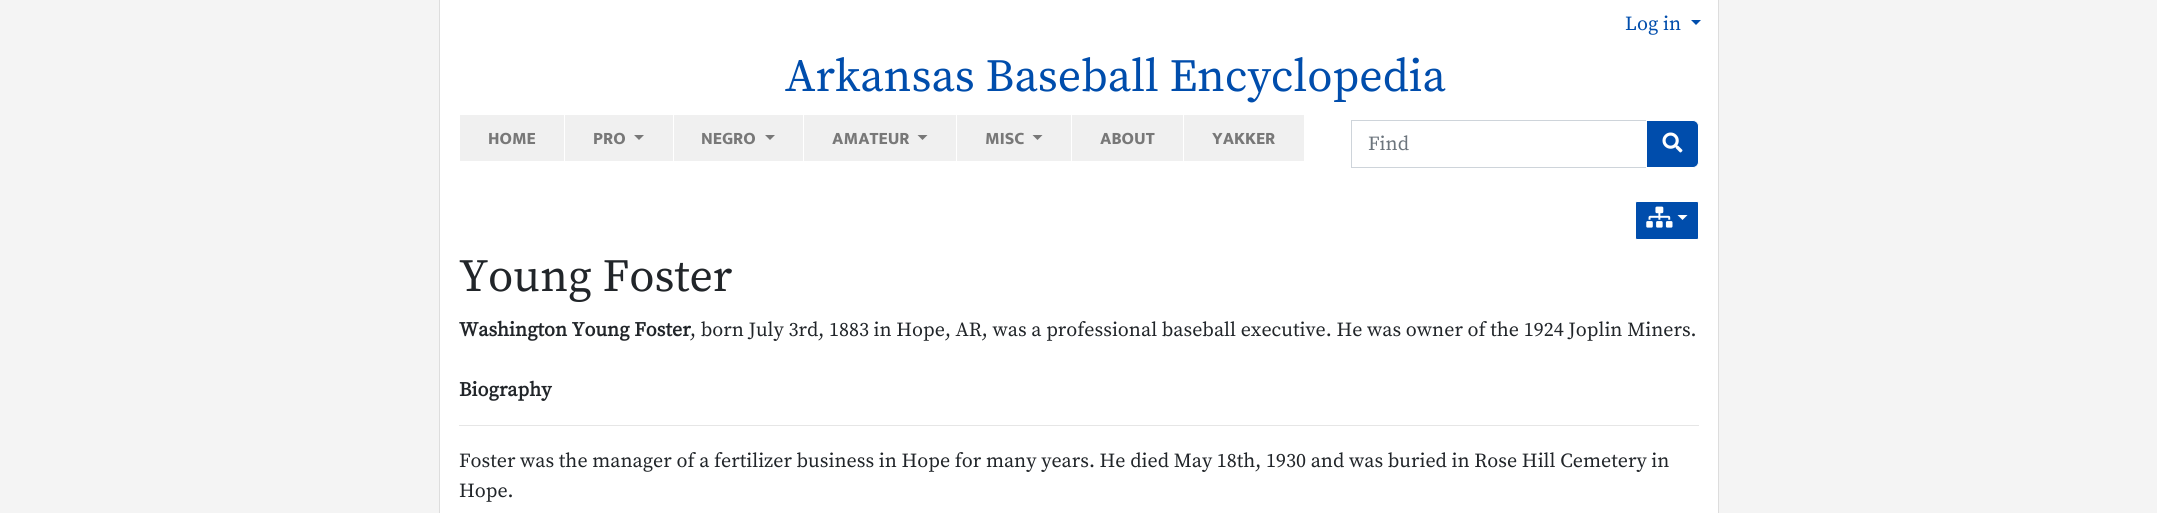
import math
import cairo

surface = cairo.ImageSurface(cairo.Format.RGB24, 2157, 513)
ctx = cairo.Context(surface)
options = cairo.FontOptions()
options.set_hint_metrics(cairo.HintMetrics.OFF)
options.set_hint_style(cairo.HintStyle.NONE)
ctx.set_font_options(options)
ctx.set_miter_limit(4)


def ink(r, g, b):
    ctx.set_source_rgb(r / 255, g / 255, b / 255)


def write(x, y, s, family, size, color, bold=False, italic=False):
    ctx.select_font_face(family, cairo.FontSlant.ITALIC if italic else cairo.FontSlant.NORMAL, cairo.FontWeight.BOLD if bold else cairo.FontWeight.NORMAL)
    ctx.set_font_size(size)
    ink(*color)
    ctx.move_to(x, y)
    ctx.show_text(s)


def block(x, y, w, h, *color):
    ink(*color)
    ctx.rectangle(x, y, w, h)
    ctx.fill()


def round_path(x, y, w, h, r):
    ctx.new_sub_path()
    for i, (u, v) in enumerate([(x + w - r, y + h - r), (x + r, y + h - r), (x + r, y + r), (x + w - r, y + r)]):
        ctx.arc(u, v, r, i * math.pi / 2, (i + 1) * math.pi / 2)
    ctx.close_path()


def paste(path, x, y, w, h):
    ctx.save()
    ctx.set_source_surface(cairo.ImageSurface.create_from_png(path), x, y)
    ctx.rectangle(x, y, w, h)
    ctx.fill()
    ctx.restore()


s1 = dict(family="Source Serif Pro", size=20, color=(0, 77, 172))
s2 = dict(family="Source Serif Pro", size=46, color=(0, 77, 172))
s3 = dict(family="Mukta ExtraBold", size=17.5, color=(120, 120, 120))
s4 = dict(family="Source Serif Pro", size=20, color=(108, 117, 125))
s5 = dict(family="Source Serif Pro", size=46, color=(33, 37, 41))
s6 = dict(family="Source Serif Pro", size=20, color=(33, 37, 41), bold=True)
s7 = dict(family="Source Serif Pro", size=20, color=(33, 37, 41))

ink(244, 244, 244)
ctx.paint()
block(440, 0, 1278, 513, 255, 255, 255)
block(1718, 0, 1, 513, 221, 221, 221)
block(439, 0, 1, 513, 221, 221, 221)
write(1625, 30, "Log in", **s1)
ctx.new_path()
ctx.move_to(1691, 20)
ctx.line_to(1701, 20)
ctx.line_to(1696, 25)
ctx.close_path()
ctx.fill()
write(785, 91, "Arkansas Baseball Encyclopedia", **s2)
block(460, 115, 104, 46, 240, 240, 240)
write(488, 144, "HOME", **s3)
block(565, 115, 108, 46, 240, 240, 240)
write(593, 144, "PRO", **s3)
ctx.new_path()
ctx.move_to(634, 135)
ctx.line_to(644, 135)
ctx.line_to(639, 140)
ctx.close_path()
ctx.fill()
block(674, 115, 129, 46, 240, 240, 240)
write(701, 144, "NEGRO", **s3)
ctx.new_path()
ctx.move_to(765, 135)
ctx.line_to(775, 135)
ctx.line_to(770, 140)
ctx.close_path()
ctx.fill()
block(804, 115, 152, 46, 240, 240, 240)
write(832, 144, "AMATEUR", **s3)
ctx.new_path()
ctx.move_to(917.5, 135)
ctx.line_to(927.5, 135)
ctx.line_to(922.5, 140)
ctx.close_path()
ctx.fill()
block(957, 115, 114, 46, 240, 240, 240)
write(985, 144, "MISC", **s3)
ctx.new_path()
ctx.move_to(1032.5, 135)
ctx.line_to(1042.5, 135)
ctx.line_to(1037.5, 140)
ctx.close_path()
ctx.fill()
block(1072, 115, 111, 46, 240, 240, 240)
write(1100, 144, "ABOUT", **s3)
block(1184, 115, 120, 46, 240, 240, 240)
write(1212, 144, "YAKKER", **s3)
ctx.rectangle(1351.5, 120.5, 296, 47)
ink(206, 212, 218)
ctx.set_line_width(1)
ctx.stroke()
write(1368, 150, "Find", **s4)
ink(0, 77, 172)
ctx.new_path()
ctx.move_to(1646.5, 120.5)
ctx.line_to(1693, 120.5)
ctx.curve_to(1696, 120.5, 1698.5, 123, 1698.5, 126)
ctx.line_to(1698.5, 162)
ctx.curve_to(1698.5, 165, 1696, 167.5, 1693, 167.5)
ctx.line_to(1646.5, 167.5)
ctx.close_path()
ctx.fill_preserve()
ink(255, 255, 255)
ctx.stroke()
paste("pic1.png", 1662, 132, 21, 21)
ink(0, 77, 172)
round_path(1635.5, 201.5, 63, 38, 1.5)
ctx.fill_preserve()
ink(255, 255, 255)
ctx.stroke()
paste("pic2.png", 1646, 206, 27, 22)
ctx.new_path()
ctx.move_to(1677.5, 215)
ctx.line_to(1687.5, 215)
ctx.line_to(1682.5, 220)
ctx.close_path()
ctx.fill()
write(459, 291, "Young Foster", **s5)
write(459, 336, "Washington Young Foster", **s6)
write(690, 336, ", born July 3rd, 1883 in Hope, AR, was a professional baseball executive. He was owner of the 1924 Joplin Miners.", **s7)
write(459, 396, "Biography", **s6)
block(459, 425, 1240, 1, 230, 230, 230)
write(459, 467, "Foster was the manager of a fertilizer business in Hope for many years. He died May 18th, 1930 and was buried in Rose Hill Cemetery in", **s7)
write(459, 497, "Hope.", **s7)
surface.write_to_png("screenshot.png")
